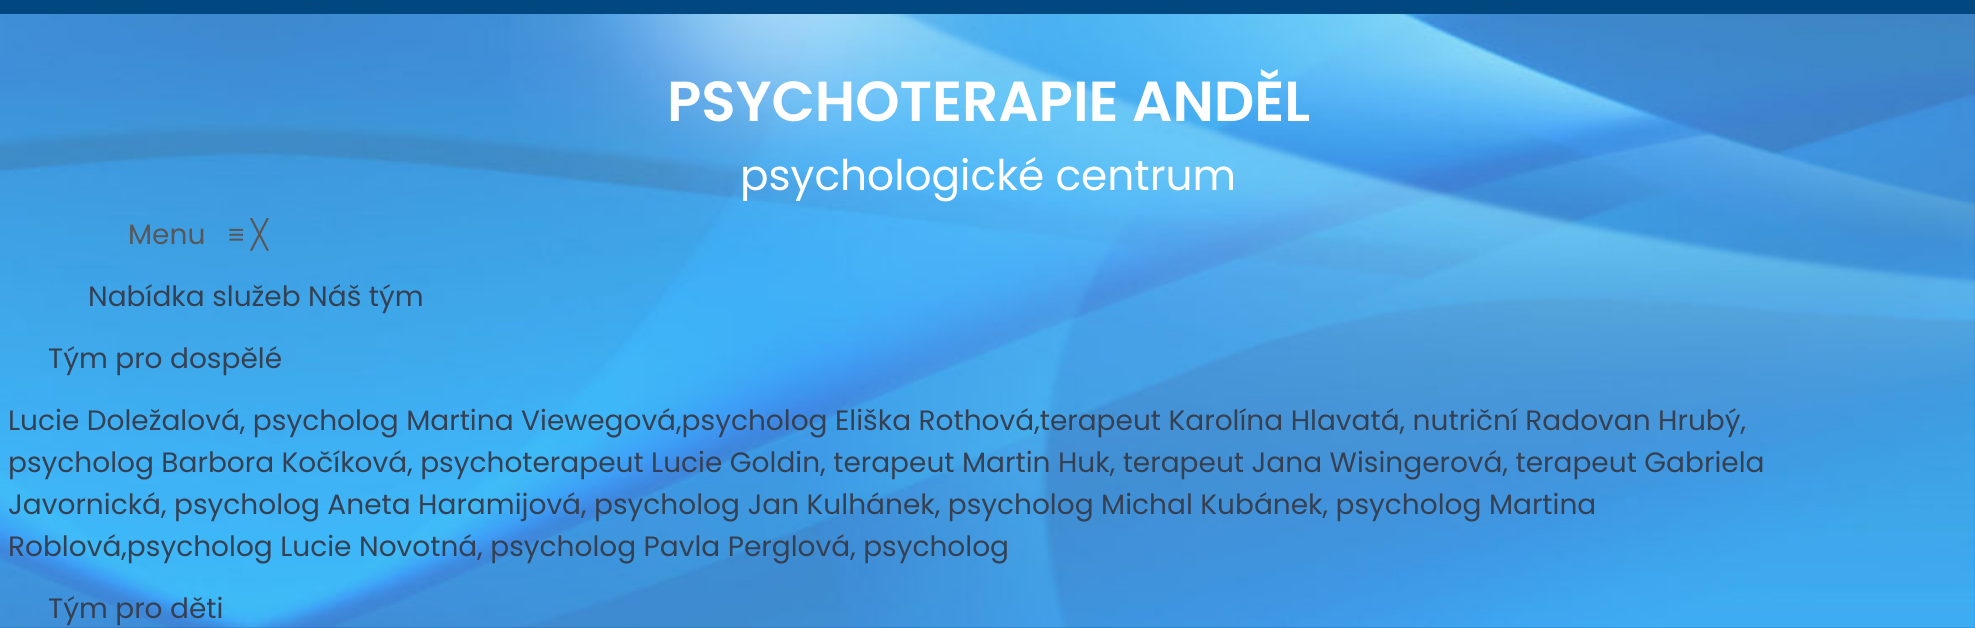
import math
import cairo

surface = cairo.ImageSurface(cairo.Format.RGB24, 1975, 628)
ctx = cairo.Context(surface)
options = cairo.FontOptions()
options.set_hint_metrics(cairo.HintMetrics.OFF)
options.set_hint_style(cairo.HintStyle.NONE)
ctx.set_font_options(options)
ctx.set_miter_limit(4)


def ink(r, g, b):
    ctx.set_source_rgb(r / 255, g / 255, b / 255)


def write(x, y, s, family, size, color, bold=False, italic=False):
    ctx.select_font_face(family, cairo.FontSlant.ITALIC if italic else cairo.FontSlant.NORMAL, cairo.FontWeight.BOLD if bold else cairo.FontWeight.NORMAL)
    ctx.set_font_size(size)
    ink(*color)
    ctx.move_to(x, y)
    ctx.show_text(s)


def paste(path, x, y, w, h):
    ctx.save()
    ctx.set_source_surface(cairo.ImageSurface.create_from_png(path), x, y)
    ctx.rectangle(x, y, w, h)
    ctx.fill()
    ctx.restore()


s1 = dict(family="Poppins SemiBold", size=56.4, color=(255, 255, 255))
s2 = dict(family="Poppins", size=42.25, color=(255, 255, 255))
s3 = dict(family="Poppins", size=28, color=(88, 86, 86))
s4 = dict(family="Liberation Sans", size=28, color=(88, 86, 86))
s5 = dict(family="DejaVu Sans", size=28, color=(88, 86, 86))
s6 = dict(family="Poppins", size=28, color=(53, 64, 83))

ink(0, 72, 127)
ctx.paint()
paste("pic1.png", 0, 14, 1975, 614)
write(667, 121, "PSYCHOTERAPIE ANDĚL", **s1)
write(740, 190, "psychologické centrum", **s2)
write(128, 244, "Menu", **s3)
write(228, 244, "≡", **s4)
write(251, 244, "╳", **s5)
write(88, 306, "Nabídka služeb Náš tým", **s6)
write(48, 368, "Tým pro dospělé", **s6)
write(8, 430, "Lucie Doležalová, psycholog Martina Viewegová,psycholog Eliška Rothová,terapeut Karolína Hlavatá, nutriční Radovan Hrubý,", **s6)
write(8, 472, "psycholog Barbora Kočíková, psychoterapeut Lucie Goldin, terapeut Martin Huk, terapeut Jana Wisingerová, terapeut Gabriela", **s6)
write(8, 514, "Javornická, psycholog Aneta Haramijová, psycholog Jan Kulhánek, psycholog Michal Kubánek, psycholog Martina", **s6)
write(8, 556, "Roblová,psycholog Lucie Novotná, psycholog Pavla Perglová, psycholog", **s6)
write(48, 618, "Tým pro děti", **s6)
surface.write_to_png("screenshot.png")
